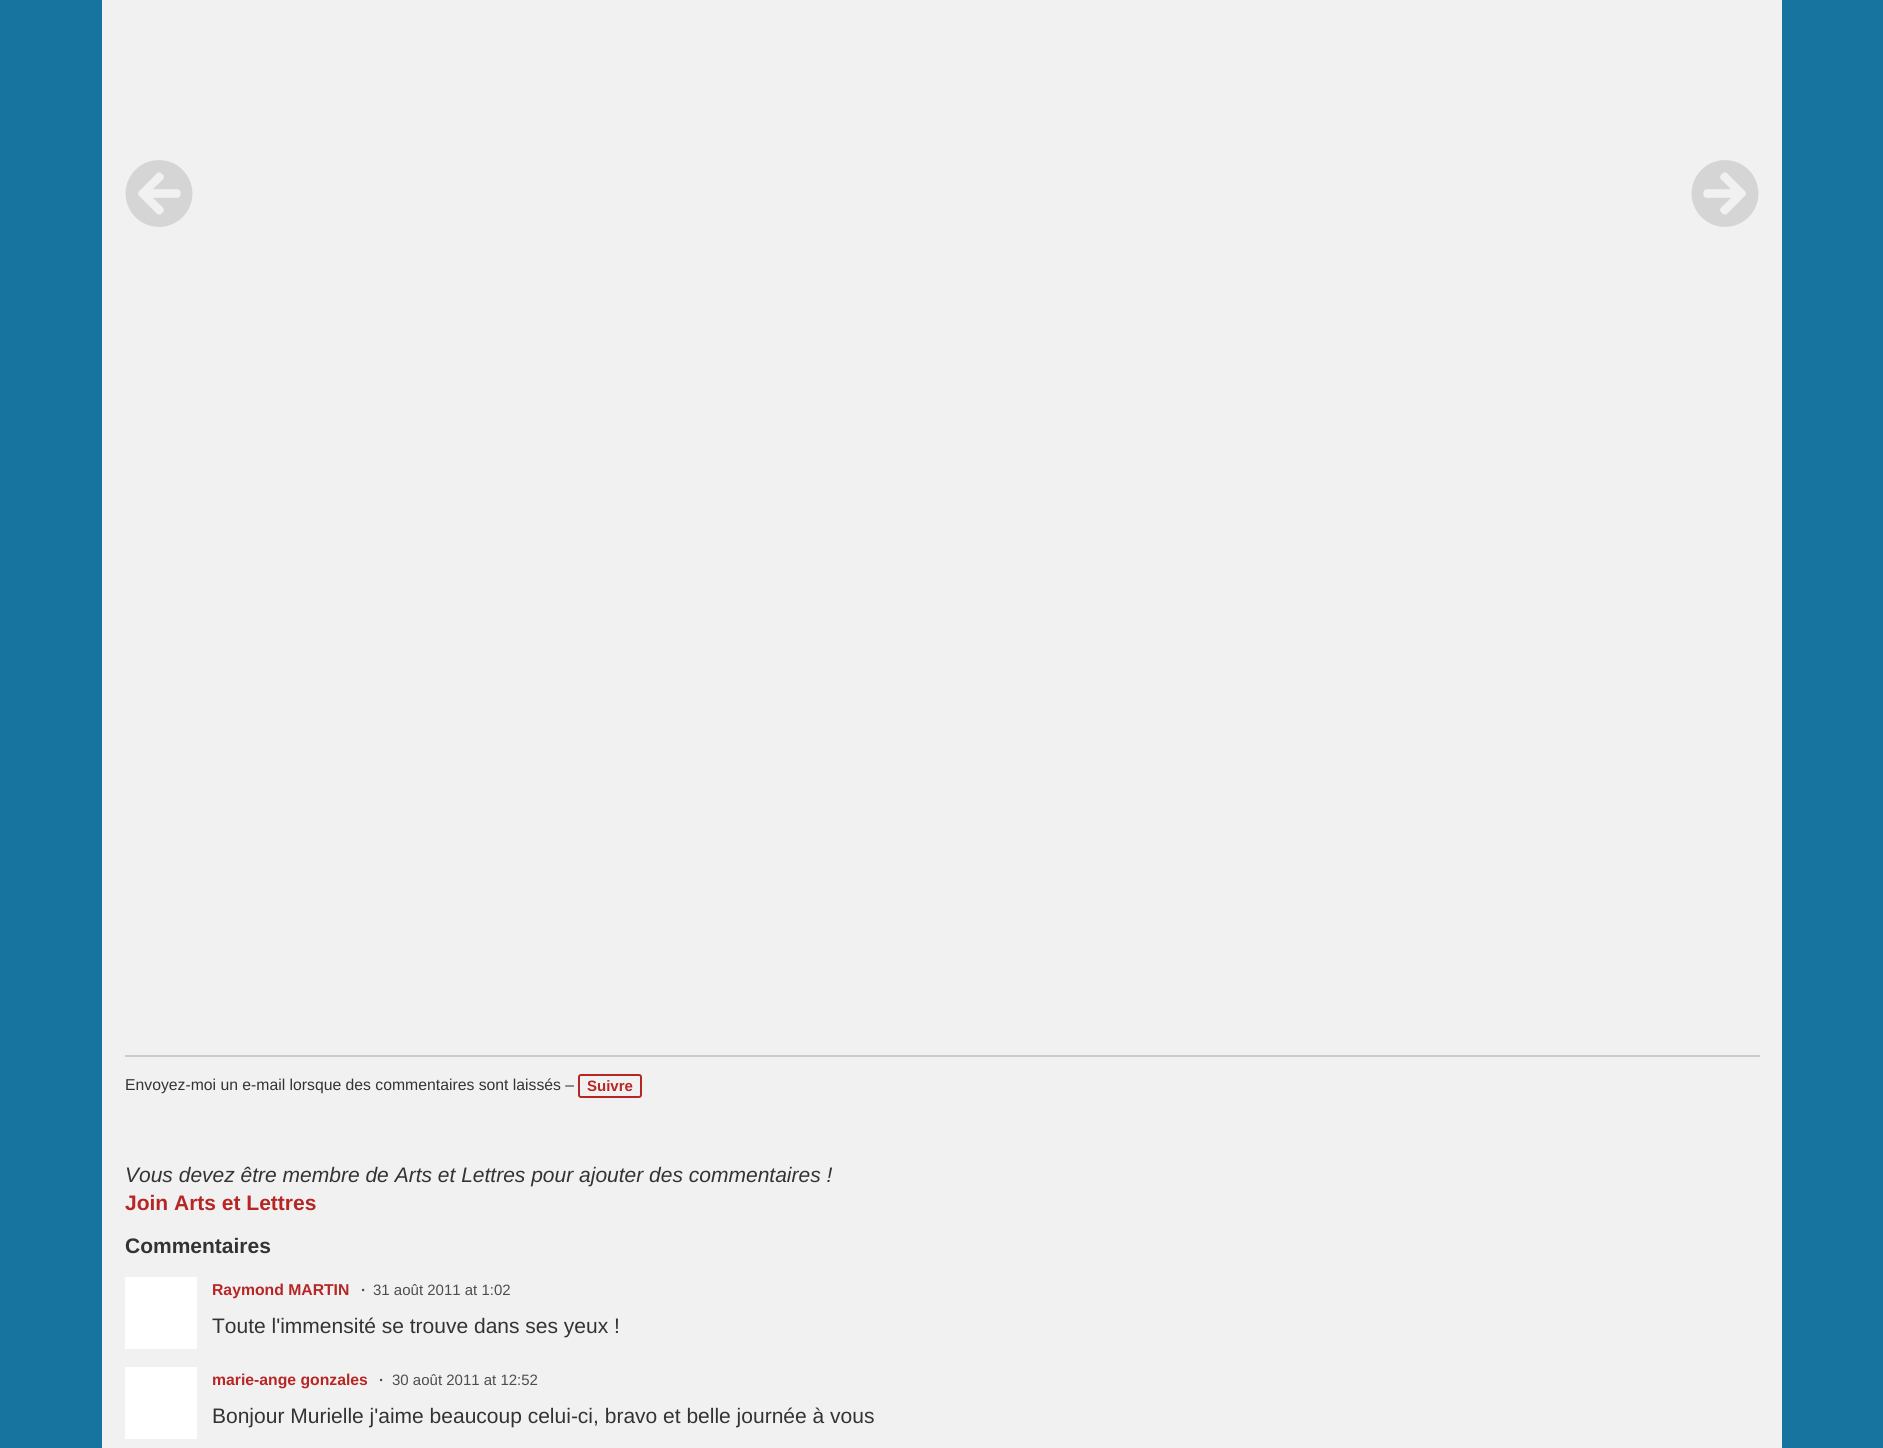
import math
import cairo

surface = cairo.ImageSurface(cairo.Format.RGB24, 1883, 1448)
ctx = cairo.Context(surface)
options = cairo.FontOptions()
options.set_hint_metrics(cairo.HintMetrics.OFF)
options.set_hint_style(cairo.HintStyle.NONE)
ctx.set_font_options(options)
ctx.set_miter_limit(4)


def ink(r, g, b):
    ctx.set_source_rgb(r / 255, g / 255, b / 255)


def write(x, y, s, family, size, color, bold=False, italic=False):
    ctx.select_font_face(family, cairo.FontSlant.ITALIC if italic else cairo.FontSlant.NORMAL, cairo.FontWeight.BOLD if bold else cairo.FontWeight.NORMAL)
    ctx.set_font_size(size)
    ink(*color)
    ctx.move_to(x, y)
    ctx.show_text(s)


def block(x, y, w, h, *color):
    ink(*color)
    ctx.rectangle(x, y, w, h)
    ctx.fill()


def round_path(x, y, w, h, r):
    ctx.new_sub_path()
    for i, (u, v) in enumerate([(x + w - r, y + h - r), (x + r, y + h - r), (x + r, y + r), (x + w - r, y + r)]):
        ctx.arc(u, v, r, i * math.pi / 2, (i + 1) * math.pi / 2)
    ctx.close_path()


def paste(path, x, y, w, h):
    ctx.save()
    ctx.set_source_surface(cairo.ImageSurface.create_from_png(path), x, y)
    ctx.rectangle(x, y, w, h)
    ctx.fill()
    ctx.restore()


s1 = dict(family="Liberation Sans", size=15.75, color=(51, 51, 51))
s2 = dict(family="Liberation Sans", size=15, color=(184, 37, 37), bold=True)
s3 = dict(family="Liberation Sans", size=21, color=(51, 51, 51), italic=True)
s4 = dict(family="Liberation Sans", size=21, color=(184, 37, 37), bold=True)
s5 = dict(family="Liberation Sans", size=21, color=(51, 51, 51), bold=True)
s6 = dict(family="Liberation Sans", size=15.75, color=(184, 37, 37), bold=True)
s7 = dict(family="Liberation Sans", size=15, color=(77, 77, 77), bold=True)
s8 = dict(family="Liberation Sans", size=15, color=(77, 77, 77))
s9 = dict(family="Liberation Sans", size=21, color=(51, 51, 51))

ink(23, 116, 158)
ctx.paint()
block(102, 0, 1680, 1448, 241, 241, 241)
paste("pic1.png", 125, 160, 68, 67)
paste("pic2.png", 1691, 160, 68, 67)
block(125, 1055, 1635, 2, 204, 204, 204)
write(125, 1090, "Envoyez-moi un e-mail lorsque des commentaires sont laissés –", **s1)
round_path(579, 1075, 62, 22, 2)
ink(184, 37, 37)
ctx.stroke()
write(587, 1091, "Suivre", **s2)
write(125, 1182, "Vous devez être membre de Arts et Lettres pour ajouter des commentaires !", **s3)
write(125, 1210, "Join Arts et Lettres", **s4)
write(125, 1253, "Commentaires", **s5)
block(125, 1277, 72, 72, 255, 255, 255)
write(212, 1295, "Raymond MARTIN", **s6)
write(361, 1295, "·", **s7)
write(373, 1295, "31 août 2011 at 1:02", **s8)
write(212, 1333, "Toute l'immensité se trouve dans ses yeux !", **s9)
block(125, 1367, 72, 72, 255, 255, 255)
write(212, 1385, "marie-ange gonzales", **s6)
write(379, 1385, "·", **s7)
write(392, 1385, "30 août 2011 at 12:52", **s8)
write(212, 1423, "Bonjour Murielle j'aime beaucoup celui-ci, bravo et belle journée à vous", **s9)
surface.write_to_png("screenshot.png")
